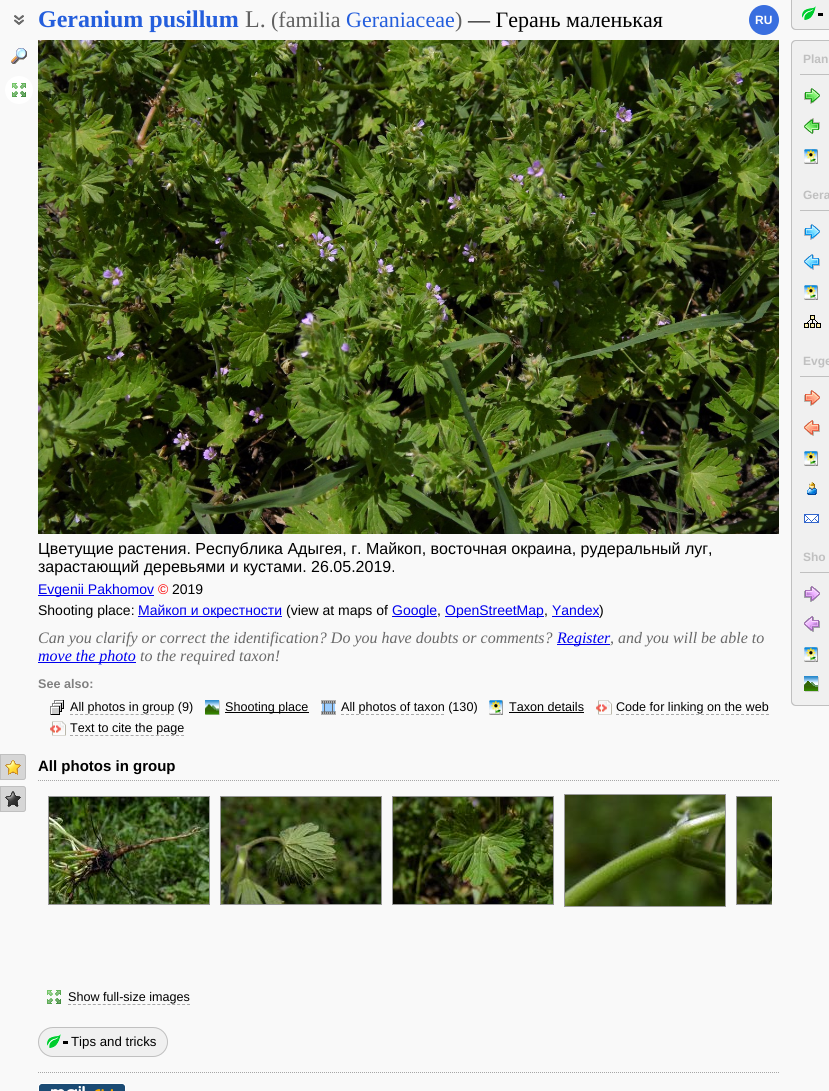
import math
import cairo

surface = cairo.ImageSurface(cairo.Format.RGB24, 829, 1091)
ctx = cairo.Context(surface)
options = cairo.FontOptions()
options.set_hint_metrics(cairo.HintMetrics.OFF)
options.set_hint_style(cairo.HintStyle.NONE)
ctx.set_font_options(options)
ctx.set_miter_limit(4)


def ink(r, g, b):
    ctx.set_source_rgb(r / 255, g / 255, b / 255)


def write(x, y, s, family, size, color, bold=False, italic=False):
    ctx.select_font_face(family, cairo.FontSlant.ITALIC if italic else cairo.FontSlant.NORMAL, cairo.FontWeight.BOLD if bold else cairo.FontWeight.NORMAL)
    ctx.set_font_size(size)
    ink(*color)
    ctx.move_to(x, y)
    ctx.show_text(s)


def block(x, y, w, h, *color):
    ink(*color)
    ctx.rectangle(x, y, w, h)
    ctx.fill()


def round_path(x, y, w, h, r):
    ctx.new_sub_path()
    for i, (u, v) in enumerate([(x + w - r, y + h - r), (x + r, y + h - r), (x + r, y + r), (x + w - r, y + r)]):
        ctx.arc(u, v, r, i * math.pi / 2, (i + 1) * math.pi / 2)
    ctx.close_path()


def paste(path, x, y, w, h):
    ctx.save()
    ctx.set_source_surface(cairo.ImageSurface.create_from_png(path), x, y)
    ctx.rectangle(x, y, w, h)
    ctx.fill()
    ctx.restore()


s1 = dict(family="Liberation Serif", size=24, color=(36, 94, 220), bold=True)
s2 = dict(family="Liberation Serif", size=24, color=(96, 96, 96))
s3 = dict(family="Liberation Serif", size=22, color=(96, 96, 96))
s4 = dict(family="Liberation Serif", size=22, color=(36, 94, 220))
s5 = dict(family="Liberation Serif", size=22, color=(0, 0, 0))
s6 = dict(family="Liberation Sans", size=12, color=(254, 254, 254), bold=True)
s7 = dict(family="Liberation Sans", size=12, color=(192, 192, 192), bold=True)
s8 = dict(family="Liberation Sans", size=16, color=(0, 0, 0))
s9 = dict(family="Liberation Sans", size=14, color=(0, 0, 238))
s10 = dict(family="Liberation Sans", size=14, color=(255, 0, 0))
s11 = dict(family="Liberation Sans", size=14, color=(0, 0, 0))
s12 = dict(family="Liberation Serif", size=16, color=(105, 105, 105), italic=True)
s13 = dict(family="Liberation Serif", size=16, color=(0, 0, 238), italic=True)
s14 = dict(family="Liberation Sans", size=12.6, color=(128, 128, 128), bold=True)
s15 = dict(family="Liberation Sans", size=12.6, color=(0, 0, 0))
s16 = dict(family="Liberation Sans", size=15, color=(0, 0, 0), bold=True)
s17 = dict(family="Liberation Sans", size=13.25, color=(0, 0, 0))

ink(249, 249, 249)
ctx.paint()
paste("pic1.png", 14, 15, 10, 10)
write(38, 27, "Geranium pusillum", **s1)
write(245, 27, "L.", **s2)
write(271, 27, "(familia", **s3)
write(346, 27, "Geraniaceae", **s4)
write(455, 27, ")", **s3)
write(468, 27, "— Герань маленькая", **s5)
ink(57, 110, 223)
ctx.new_path()
ctx.arc(764, 20, 15, 0, 2 * math.pi)
ctx.fill()
write(755, 24, "RU", **s6)
paste("pic2.png", 11, 48, 16, 16)
ink(255, 255, 255)
ctx.arc(19, 90, 14, 0, 2 * math.pi)
ctx.fill()
paste("pic3.png", 12, 83, 14, 14)
ink(214, 214, 214)
ctx.new_path()
ctx.move_to(0, 754)
ctx.line_to(23, 754)
ctx.curve_to(24.5, 754, 26, 755.5, 26, 757)
ctx.line_to(26, 777)
ctx.curve_to(26, 778.5, 24.5, 780, 23, 780)
ctx.line_to(0, 780)
ctx.close_path()
ctx.fill()
paste("pic4.png", 5, 760, 16, 15)
ctx.new_path()
ctx.move_to(0.5, 754.5)
ctx.line_to(23, 754.5)
ctx.curve_to(24.5, 754.5, 25.5, 755.5, 25.5, 757)
ctx.line_to(25.5, 777)
ctx.curve_to(25.5, 778.5, 24.5, 779.5, 23, 779.5)
ctx.line_to(0.5, 779.5)
ctx.close_path()
ink(192, 192, 192)
ctx.set_line_width(1)
ctx.stroke()
ink(214, 214, 214)
ctx.new_path()
ctx.move_to(0, 786)
ctx.line_to(23, 786)
ctx.curve_to(24.5, 786, 26, 787.5, 26, 789)
ctx.line_to(26, 809)
ctx.curve_to(26, 810.5, 24.5, 812, 23, 812)
ctx.line_to(0, 812)
ctx.close_path()
ctx.fill()
paste("pic5.png", 5, 791, 16, 16)
ctx.new_path()
ctx.move_to(0.5, 786.5)
ctx.line_to(23, 786.5)
ctx.curve_to(24.5, 786.5, 25.5, 787.5, 25.5, 789)
ctx.line_to(25.5, 809)
ctx.curve_to(25.5, 810.5, 24.5, 811.5, 23, 811.5)
ctx.line_to(0.5, 811.5)
ctx.close_path()
ink(192, 192, 192)
ctx.stroke()
ink(240, 240, 240)
ctx.new_path()
ctx.move_to(791, 0)
ctx.line_to(829, 0)
ctx.line_to(829, 30)
ctx.line_to(796, 30)
ctx.curve_to(793, 30, 791, 28, 791, 25)
ctx.close_path()
ctx.fill()
paste("pic6.png", 802, 6, 14, 14)
ink(192, 192, 192)
ctx.set_fill_rule(cairo.FillRule.EVEN_ODD)
ctx.new_path()
ctx.move_to(791, 0)
ctx.line_to(829, 0)
ctx.line_to(829, 30)
ctx.line_to(796, 30)
ctx.curve_to(793, 30, 791, 28, 791, 25)
ctx.close_path()
ctx.move_to(792, 0)
ctx.line_to(829, 0)
ctx.line_to(829, 29)
ctx.line_to(796, 29)
ctx.curve_to(794, 29, 792, 27, 792, 25)
ctx.close_path()
ctx.fill()
block(818, 13, 5, 3, 0, 0, 0)
ink(240, 240, 240)
ctx.new_path()
ctx.move_to(796, 40)
ctx.line_to(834, 40)
ctx.line_to(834, 706)
ctx.line_to(796, 706)
ctx.curve_to(793, 706, 791, 704, 791, 701)
ctx.line_to(791, 45)
ctx.curve_to(791, 42, 793, 40, 796, 40)
ctx.close_path()
ctx.fill()
ink(192, 192, 192)
ctx.new_path()
ctx.move_to(796, 40)
ctx.line_to(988, 40)
ctx.line_to(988, 706)
ctx.line_to(796, 706)
ctx.curve_to(793, 706, 791, 704, 791, 701)
ctx.line_to(791, 45)
ctx.curve_to(791, 42, 793, 40, 796, 40)
ctx.close_path()
ctx.move_to(796, 41)
ctx.line_to(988, 41)
ctx.line_to(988, 705)
ctx.line_to(796, 705)
ctx.curve_to(794, 705, 792, 703, 792, 701)
ctx.line_to(792, 45)
ctx.curve_to(792, 43, 794, 41, 796, 41)
ctx.close_path()
ctx.fill()
block(800, 74, 29, 1, 192, 192, 192)
write(803, 63, "Plan", **s7)
paste("pic7.png", 804, 88, 16, 16)
paste("pic8.png", 804, 118, 16, 16)
paste("pic9.png", 804, 149, 14, 15)
block(800, 210, 29, 1, 192, 192, 192)
write(803, 199, "Gera", **s7)
paste("pic10.png", 804, 224, 16, 16)
paste("pic11.png", 804, 254, 16, 16)
paste("pic9.png", 804, 285, 14, 15)
paste("pic12.png", 804, 315, 17, 13)
block(800, 376, 29, 1, 192, 192, 192)
write(803, 365, "Evge", **s7)
paste("pic13.png", 804, 390, 16, 16)
paste("pic14.png", 804, 420, 16, 16)
paste("pic9.png", 804, 451, 14, 15)
paste("pic15.png", 807, 482, 10, 13)
paste("pic16.png", 804, 514, 15, 9)
block(800, 572, 29, 1, 192, 192, 192)
write(803, 561, "Sho", **s7)
paste("pic17.png", 804, 586, 16, 16)
paste("pic18.png", 804, 616, 16, 16)
paste("pic9.png", 804, 647, 14, 15)
paste("pic19.png", 804, 676, 15, 16)
paste("pic20.png", 38, 40, 741, 494)
write(38, 554, "Цветущие растения. Республика Адыгея, г. Майкоп, восточная окраина, рудеральный луг,", **s8)
write(38, 572, "зарастающий деревьями и кустами. 26.05.2019.", **s8)
block(38, 595, 116, 1, 0, 0, 238)
write(38, 594, "Evgenii Pakhomov", **s9)
write(158, 594, "©", **s10)
write(172, 594, "2019", **s11)
write(38, 615, "Shooting place:", **s11)
block(138, 616, 144, 1, 0, 0, 238)
write(138, 615, "Майкоп и окрестности", **s9)
write(286, 615, "(view at maps of", **s11)
block(392, 616, 45, 1, 0, 0, 238)
write(392, 615, "Google", **s9)
write(437, 615, ",", **s11)
block(445, 616, 99, 1, 0, 0, 238)
write(445, 615, "OpenStreetMap", **s9)
write(544, 615, ",", **s11)
write(552, 615, "Yandex", **s9)
block(552, 616, 47, 1, 0, 0, 238)
write(599, 615, ")", **s11)
write(38, 643, "Can you clarify or correct the identification? Do you have doubts or comments?", **s12)
block(557, 644, 53, 1, 0, 0, 238)
write(557, 643, "Register", **s13)
write(610, 643, ", and you will be able to", **s12)
block(38, 662, 98, 1, 0, 0, 238)
write(38, 661, "move the photo", **s13)
write(140, 661, "to the required taxon!", **s12)
write(38, 688, "See also:", **s14)
paste("pic21.png", 50, 700, 14, 15)
write(70, 711, "All photos in group (9)", **s15)
ctx.new_path()
ctx.move_to(70, 714.5)
ctx.line_to(174, 714.5)
ink(169, 169, 169)
ctx.set_dash([3, 2.05])
ctx.stroke()
paste("pic22.png", 205, 700, 15, 15)
block(225, 712, 84, 1, 0, 0, 0)
write(225, 711, "Shooting place", **s15)
paste("pic23.png", 321, 700, 15, 15)
write(341, 711, "All photos of taxon (130)", **s15)
ctx.new_path()
ctx.move_to(341, 714.5)
ctx.line_to(444, 714.5)
ink(169, 169, 169)
ctx.set_dash([3, 2])
ctx.stroke()
paste("pic9.png", 489, 700, 14, 15)
write(509, 711, "Taxon details", **s15)
block(509, 712, 75, 1, 0, 0, 0)
paste("pic24.png", 596, 700, 16, 15)
write(616, 711, "Code for linking on the web", **s15)
ctx.new_path()
ctx.move_to(616, 714.5)
ctx.line_to(769, 714.5)
ink(169, 169, 169)
ctx.stroke()
paste("pic24.png", 50, 721, 16, 15)
write(70, 732, "Text to cite the page", **s15)
ctx.new_path()
ctx.move_to(70, 735.5)
ctx.line_to(184, 735.5)
ink(169, 169, 169)
ctx.set_dash([3, 2.05])
ctx.stroke()
ctx.new_path()
ctx.move_to(38, 780.5)
ctx.line_to(779, 780.5)
ink(166, 166, 166)
ctx.set_dash([1, 1])
ctx.stroke()
write(38, 771, "All photos in group", **s16)
ctx.rectangle(48.5, 796.5, 161, 108)
ink(153, 153, 153)
ctx.set_dash([])
ctx.stroke()
paste("pic25.png", 49, 797, 160, 107)
ctx.rectangle(220.5, 796.5, 161, 108)
ctx.stroke()
paste("pic26.png", 221, 797, 160, 107)
ctx.rectangle(392.5, 796.5, 161, 108)
ctx.stroke()
paste("pic27.png", 393, 797, 160, 107)
ctx.rectangle(564.5, 794.5, 161, 112)
ctx.stroke()
paste("pic28.png", 565, 795, 160, 111)
ctx.save()
ctx.set_fill_rule(cairo.FillRule.WINDING)
ctx.rectangle(38, 784, 734, 200)
ctx.clip()
ctx.rectangle(736.5, 796.5, 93, 108)
ctx.stroke()
ctx.restore()
paste("pic29.png", 737, 797, 35, 107)
paste("pic30.png", 47, 990, 14, 14)
write(68, 1001, "Show full-size images", **s15)
ctx.new_path()
ctx.move_to(68, 1004.5)
ctx.line_to(190, 1004.5)
ink(169, 169, 169)
ctx.set_dash([3, 1.96])
ctx.stroke()
ink(240, 240, 240)
round_path(38, 1027, 130, 30, 15)
ctx.fill()
block(63, 1041, 5, 3, 0, 0, 0)
round_path(38.5, 1027.5, 129, 29, 14.5)
ink(192, 192, 192)
ctx.set_dash([])
ctx.stroke()
paste("pic6.png", 47, 1034, 14, 14)
write(71, 1046, "Tips and tricks", **s17)
ctx.new_path()
ctx.move_to(38, 1072.5)
ctx.line_to(779, 1072.5)
ink(166, 166, 166)
ctx.set_dash([1, 1])
ctx.stroke()
paste("pic31.png", 38, 1083, 88, 8)
surface.write_to_png("screenshot.png")
